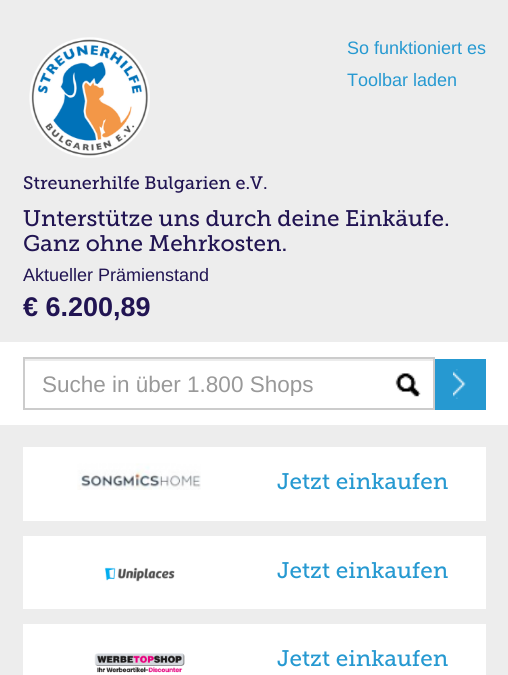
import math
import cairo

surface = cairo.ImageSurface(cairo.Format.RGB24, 508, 675)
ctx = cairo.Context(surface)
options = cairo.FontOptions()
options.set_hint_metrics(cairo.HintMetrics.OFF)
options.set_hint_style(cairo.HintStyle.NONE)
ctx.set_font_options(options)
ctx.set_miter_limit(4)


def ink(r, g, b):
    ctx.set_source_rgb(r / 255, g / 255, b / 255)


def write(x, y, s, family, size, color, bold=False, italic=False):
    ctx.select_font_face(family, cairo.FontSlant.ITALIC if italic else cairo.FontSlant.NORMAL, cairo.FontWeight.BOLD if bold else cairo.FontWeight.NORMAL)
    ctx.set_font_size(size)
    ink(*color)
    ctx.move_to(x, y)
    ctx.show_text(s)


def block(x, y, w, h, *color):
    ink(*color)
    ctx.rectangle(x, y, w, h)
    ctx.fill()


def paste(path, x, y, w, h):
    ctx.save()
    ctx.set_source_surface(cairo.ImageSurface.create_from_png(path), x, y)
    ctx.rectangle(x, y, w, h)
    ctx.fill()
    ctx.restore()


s1 = dict(family="Liberation Sans", size=18, color=(38, 153, 209))
s2 = dict(family="Museo Slab", size=18, color=(33, 20, 82))
s3 = dict(family="Museo Slab", size=22.5, color=(33, 20, 82))
s4 = dict(family="Liberation Sans", size=18, color=(33, 20, 82))
s5 = dict(family="Liberation Sans", size=27, color=(33, 20, 82), bold=True)
s6 = dict(family="Liberation Sans", size=22.5, color=(153, 153, 153))
s7 = dict(family="Museo Slab", size=22.5, color=(38, 153, 209))

ink(237, 237, 237)
ctx.paint()
paste("pic1.png", 29, 37, 121, 121)
write(347, 54, "So funktioniert es", **s1)
write(347, 86, "Toolbar laden", **s1)
write(23, 189, "Streunerhilfe Bulgarien e.V.", **s2)
write(23, 226, "Unterstütze uns durch deine Einkäufe.", **s3)
write(23, 251, "Ganz ohne Mehrkosten.", **s3)
write(23, 281, "Aktueller Prämienstand", **s4)
write(23, 316, "€ 6.200,89", **s5)
block(0, 342, 508, 83, 255, 255, 255)
paste("pic2.png", 395, 373, 26, 24)
block(24, 359, 410, 2, 236, 236, 236)
ctx.rectangle(24, 358, 410, 51)
ink(204, 204, 204)
ctx.stroke()
ctx.save()
ctx.rectangle(42, 371, 374, 25)
ctx.clip()
write(42, 392, "Suche in über 1.800 Shops", **s6)
ctx.restore()
block(435, 359, 51, 51, 38, 153, 209)
paste("pic3.png", 453, 369, 13, 30)
block(23, 447, 463, 74, 255, 255, 255)
paste("pic4.png", 77, 463, 124, 27)
write(277, 489, "Jetzt einkaufen", **s7)
block(23, 536, 463, 73, 255, 255, 255)
paste("pic5.png", 104, 567, 71, 15)
write(277, 578, "Jetzt einkaufen", **s7)
block(23, 624, 463, 51, 255, 255, 255)
paste("pic6.png", 94, 653, 91, 20)
write(277, 666, "Jetzt einkaufen", **s7)
surface.write_to_png("screenshot.png")
